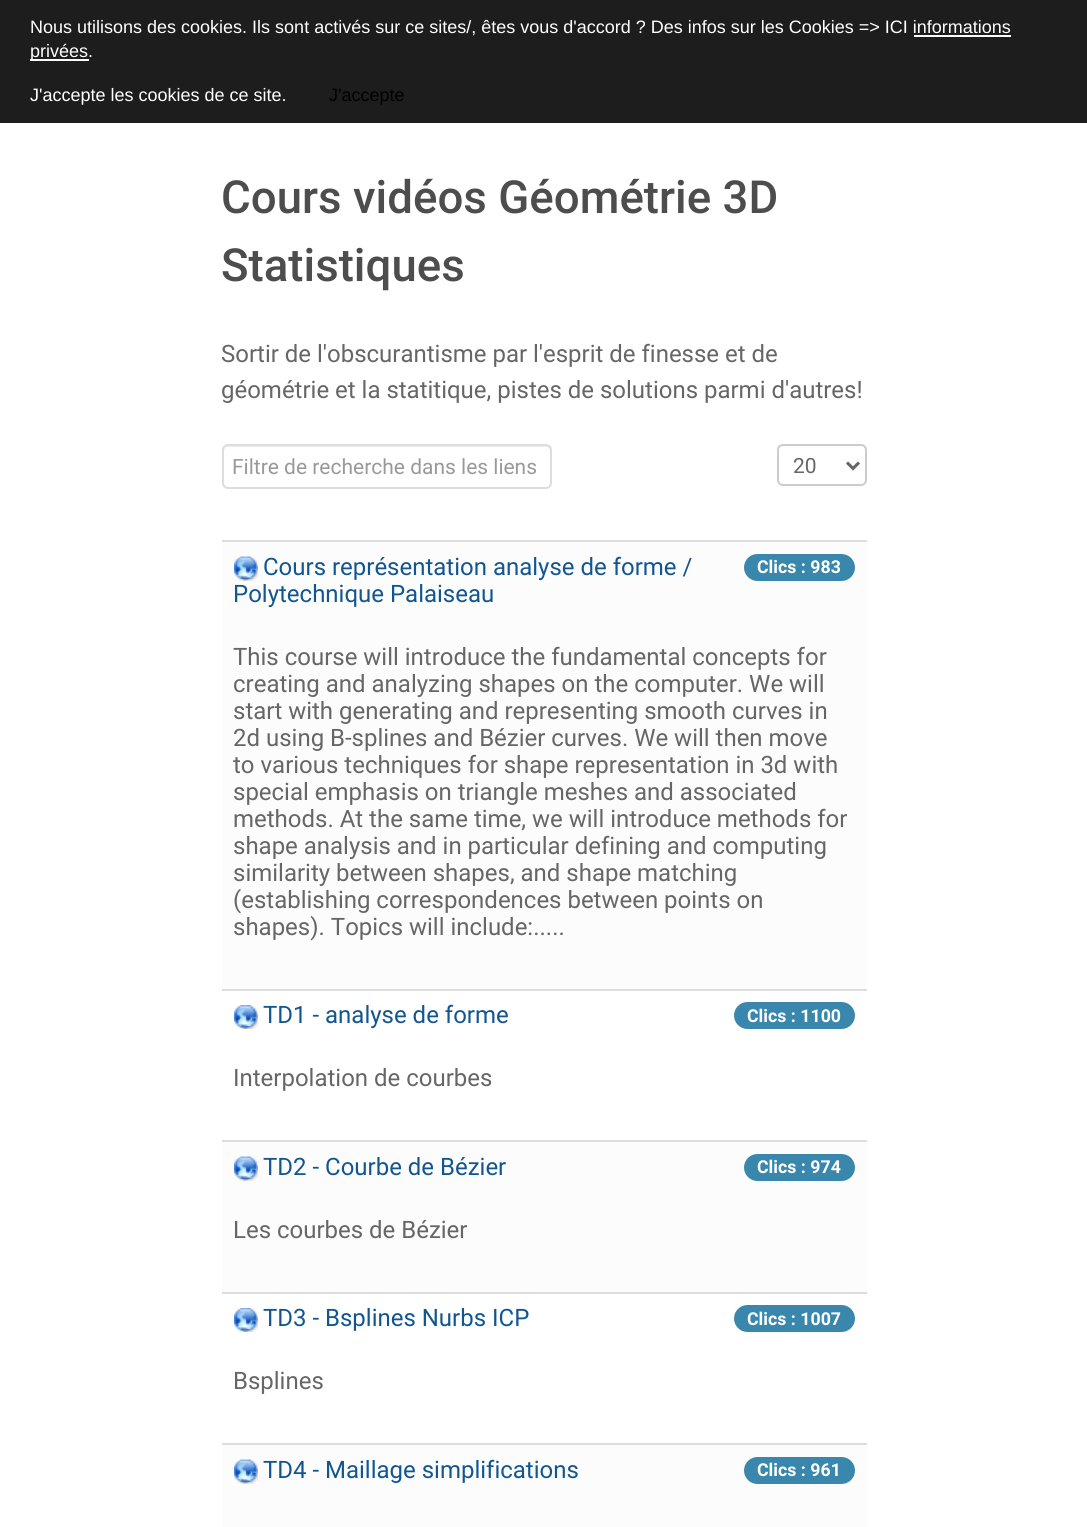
import math
import cairo

surface = cairo.ImageSurface(cairo.Format.RGB24, 1087, 1527)
ctx = cairo.Context(surface)
options = cairo.FontOptions()
options.set_hint_metrics(cairo.HintMetrics.OFF)
options.set_hint_style(cairo.HintStyle.NONE)
ctx.set_font_options(options)
ctx.set_miter_limit(4)


def ink(r, g, b):
    ctx.set_source_rgb(r / 255, g / 255, b / 255)


def write(x, y, s, family, size, color, bold=False, italic=False):
    ctx.select_font_face(family, cairo.FontSlant.ITALIC if italic else cairo.FontSlant.NORMAL, cairo.FontWeight.BOLD if bold else cairo.FontWeight.NORMAL)
    ctx.set_font_size(size)
    ink(*color)
    ctx.move_to(x, y)
    ctx.show_text(s)


def block(x, y, w, h, *color):
    ink(*color)
    ctx.rectangle(x, y, w, h)
    ctx.fill()


def round_path(x, y, w, h, r):
    ctx.new_sub_path()
    for i, (u, v) in enumerate([(x + w - r, y + h - r), (x + r, y + h - r), (x + r, y + r), (x + w - r, y + r)]):
        ctx.arc(u, v, r, i * math.pi / 2, (i + 1) * math.pi / 2)
    ctx.close_path()


def paste(path, x, y, w, h):
    ctx.save()
    ctx.set_source_surface(cairo.ImageSurface.create_from_png(path), x, y)
    ctx.rectangle(x, y, w, h)
    ctx.fill()
    ctx.restore()


s1 = dict(family="Liberation Sans", size=18, color=(255, 255, 255))
s2 = dict(family="Liberation Sans", size=18, color=(0, 0, 0))
s3 = dict(family="Roboto Medium", size=45.6, color=(77, 77, 77))
s4 = dict(family="Roboto", size=24, color=(102, 102, 102))
s5 = dict(family="Roboto", size=21, color=(153, 153, 153))
s6 = dict(family="Roboto", size=21, color=(102, 102, 102))
s7 = dict(family="Roboto", size=24, color=(18, 86, 145))
s8 = dict(family="Roboto", size=17.75, color=(255, 255, 255), bold=True)

ink(255, 255, 255)
ctx.paint()
block(0, 0, 1087, 123, 29, 29, 29)
write(30, 33, "Nous utilisons des cookies. Ils sont activés sur ce sites/, êtes vous d'accord ? Des infos sur les Cookies => ICI informations", **s1)
block(30, 59, 59, 2, 255, 255, 255)
write(30, 57, "privées.", **s1)
block(914, 35, 97, 2, 255, 255, 255)
write(30, 101, "J'accepte les cookies de ce site.", **s1)
write(329, 101, "J'accepte", **s2)
write(221, 213, "Cours vidéos Géométrie 3D", **s3)
write(221, 281, "Statistiques", **s3)
write(221, 362, "Sortir de l'obscurantisme par l'esprit de finesse et de", **s4)
write(221, 398, "géométrie et la statitique, pistes de solutions parmi d'autres!", **s4)
ink(236, 236, 236)
ctx.new_path()
ctx.move_to(228, 447)
ctx.line_to(546, 447)
ctx.curve_to(548, 447, 550, 449, 550, 452)
ctx.line_to(550, 484)
ctx.line_to(549, 487)
ctx.curve_to(550, 486, 551, 484, 551, 483)
ctx.line_to(551, 451)
ctx.curve_to(551, 448, 549, 446, 546, 446)
ctx.line_to(229, 446)
ctx.curve_to(226, 446, 224, 448, 224, 451)
ctx.line_to(224, 452)
ctx.curve_to(224, 449, 226, 447, 228, 447)
ctx.close_path()
ctx.fill()
round_path(223, 445, 328, 43, 5)
ink(221, 221, 221)
ctx.stroke()
write(232, 474, "Filtre de recherche dans les liens", **s5)
round_path(778, 445, 88, 40, 5)
ink(204, 204, 204)
ctx.stroke()
ctx.new_path()
ctx.move_to(847, 462.5)
ctx.line_to(853, 468.5)
ctx.line_to(859, 462.5)
ink(102, 102, 102)
ctx.set_line_width(3)
ctx.stroke()
write(793, 473, "20", **s6)
block(222, 540, 645, 2, 221, 221, 221)
block(222, 542, 645, 447, 252, 252, 252)
block(222, 989, 645, 2, 221, 221, 221)
paste("pic1.png", 234, 556, 24, 25)
write(263, 575, "Cours représentation analyse de forme /", **s7)
write(233, 602, "Polytechnique Palaiseau", **s7)
ink(58, 135, 173)
round_path(744, 554, 111, 27, 13.5)
ctx.fill()
write(757, 573, "Clics : 983", **s8)
write(233, 665, "This course will introduce the fundamental concepts for", **s4)
write(233, 692, "creating and analyzing shapes on the computer. We will", **s4)
write(233, 719, "start with generating and representing smooth curves in", **s4)
write(233, 746, "2d using B-splines and Bézier curves. We will then move", **s4)
write(233, 773, "to various techniques for shape representation in 3d with", **s4)
write(233, 800, "special emphasis on triangle meshes and associated", **s4)
write(233, 827, "methods. At the same time, we will introduce methods for", **s4)
write(233, 854, "shape analysis and in particular defining and computing", **s4)
write(233, 881, "similarity between shapes, and shape matching", **s4)
write(233, 908, "(establishing correspondences between points on", **s4)
write(233, 935, "shapes). Topics will include:.....", **s4)
block(222, 1140, 645, 2, 221, 221, 221)
paste("pic2.png", 234, 1005, 24, 24)
write(263, 1023, "TD1 - analyse de forme", **s7)
ink(58, 135, 173)
round_path(734, 1002, 121, 27, 13.5)
ctx.fill()
write(747, 1022, "Clics : 1100", **s8)
write(233, 1086, "Interpolation de courbes", **s4)
block(222, 1142, 645, 150, 252, 252, 252)
block(222, 1292, 645, 2, 221, 221, 221)
paste("pic1.png", 234, 1156, 24, 25)
write(263, 1175, "TD2 - Courbe de Bézier", **s7)
ink(58, 135, 173)
round_path(744, 1154, 111, 27, 13.5)
ctx.fill()
write(757, 1173, "Clics : 974", **s8)
write(233, 1238, "Les courbes de Bézier", **s4)
block(222, 1443, 645, 2, 221, 221, 221)
paste("pic2.png", 234, 1308, 24, 24)
write(263, 1326, "TD3 - Bsplines Nurbs ICP", **s7)
ink(58, 135, 173)
round_path(734, 1305, 121, 27, 13.5)
ctx.fill()
write(747, 1325, "Clics : 1007", **s8)
write(233, 1389, "Bsplines", **s4)
block(222, 1445, 645, 82, 252, 252, 252)
paste("pic1.png", 234, 1459, 24, 25)
write(263, 1478, "TD4 - Maillage simplifications", **s7)
ink(58, 135, 173)
round_path(744, 1457, 111, 27, 13.5)
ctx.fill()
write(757, 1476, "Clics : 961", **s8)
surface.write_to_png("screenshot.png")
